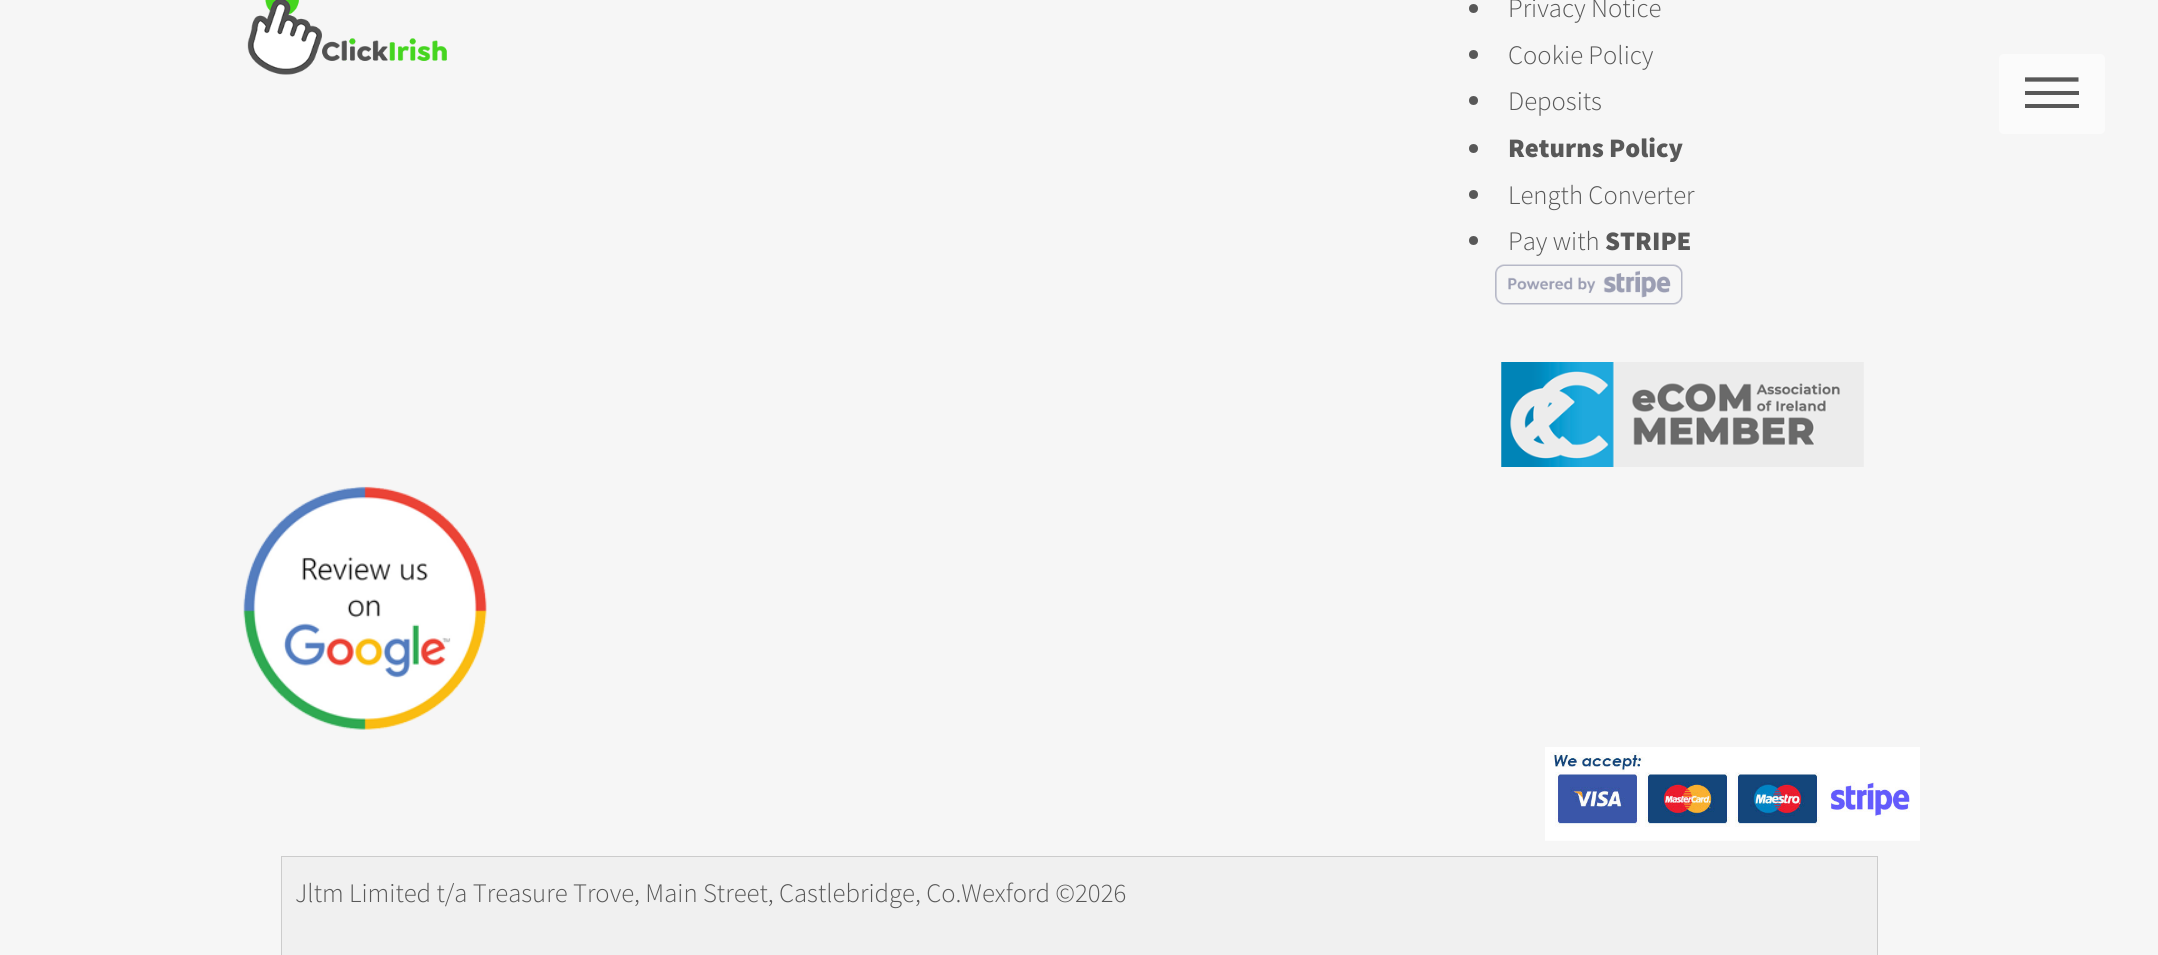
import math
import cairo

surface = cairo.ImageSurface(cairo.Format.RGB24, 2158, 955)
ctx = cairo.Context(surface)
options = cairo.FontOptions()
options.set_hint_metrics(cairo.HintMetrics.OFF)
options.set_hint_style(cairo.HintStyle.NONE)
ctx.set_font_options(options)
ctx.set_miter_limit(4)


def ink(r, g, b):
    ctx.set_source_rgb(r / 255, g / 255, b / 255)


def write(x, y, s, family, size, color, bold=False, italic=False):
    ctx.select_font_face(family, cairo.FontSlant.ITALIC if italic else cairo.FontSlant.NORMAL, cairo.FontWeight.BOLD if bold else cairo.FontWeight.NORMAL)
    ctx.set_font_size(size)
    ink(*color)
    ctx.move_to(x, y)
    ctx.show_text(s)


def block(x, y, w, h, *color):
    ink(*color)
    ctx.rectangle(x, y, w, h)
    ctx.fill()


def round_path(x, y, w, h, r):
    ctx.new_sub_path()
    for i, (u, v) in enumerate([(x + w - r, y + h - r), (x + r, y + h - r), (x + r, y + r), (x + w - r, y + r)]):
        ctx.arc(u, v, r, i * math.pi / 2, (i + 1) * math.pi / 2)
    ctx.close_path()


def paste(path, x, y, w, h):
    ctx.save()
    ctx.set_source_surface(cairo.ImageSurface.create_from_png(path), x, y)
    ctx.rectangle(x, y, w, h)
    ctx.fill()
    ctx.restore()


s1 = dict(family="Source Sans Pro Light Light", size=26.7, color=(88, 88, 88))
s2 = dict(family="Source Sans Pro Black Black", size=26.7, color=(88, 88, 88))

ink(246, 246, 246)
ctx.paint()
paste("pic1.png", 247, 0, 200, 75)
ink(88, 88, 88)
ctx.arc(1473.5, 8.5, 4.5, 0, 2 * math.pi)
ctx.fill()
write(1508, 17, "Privacy Notice", **s1)
ctx.new_path()
ctx.arc(1473.5, 54.5, 4.5, 0, 2 * math.pi)
ctx.fill()
write(1508, 64, "Cookie Policy", **s1)
ctx.new_path()
ctx.arc(1473.5, 100.5, 4.5, 0, 2 * math.pi)
ctx.fill()
write(1508, 110, "Deposits", **s1)
ctx.new_path()
ctx.arc(1473.5, 148.5, 4.5, 0, 2 * math.pi)
ctx.fill()
write(1508, 157, "Returns Policy", **s2)
ctx.new_path()
ctx.arc(1473.5, 194.5, 4.5, 0, 2 * math.pi)
ctx.fill()
write(1508, 204, "Length Converter", **s1)
ctx.new_path()
ctx.arc(1473.5, 240.5, 4.5, 0, 2 * math.pi)
ctx.fill()
write(1508, 250, "Pay with", **s1)
write(1605, 250, "STRIPE", **s2)
paste("pic2.png", 1495, 264, 188, 41)
paste("pic3.png", 1501, 362, 363, 105)
paste("pic4.png", 243, 486, 244, 244)
paste("pic5.png", 1545, 747, 375, 94)
ink(240, 240, 240)
ctx.rectangle(281.5, 856.5, 1596, 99)
ctx.fill_preserve()
ink(204, 204, 204)
ctx.set_line_width(1)
ctx.stroke()
write(295, 902, "Jltm Limited t/a Treasure Trove, Main Street, Castlebridge, Co.Wexford ©2026", **s1)
ink(251, 251, 251)
round_path(1999, 54, 106, 80, 5)
ctx.fill()
ctx.new_path()
ctx.move_to(2025, 79.5)
ctx.line_to(2078.5, 79.5)
ink(88, 88, 88)
ctx.set_line_width(4.3)
ctx.stroke()
block(2025, 91, 54, 4, 88, 88, 88)
block(2025, 104, 54, 4, 88, 88, 88)
surface.write_to_png("screenshot.png")
